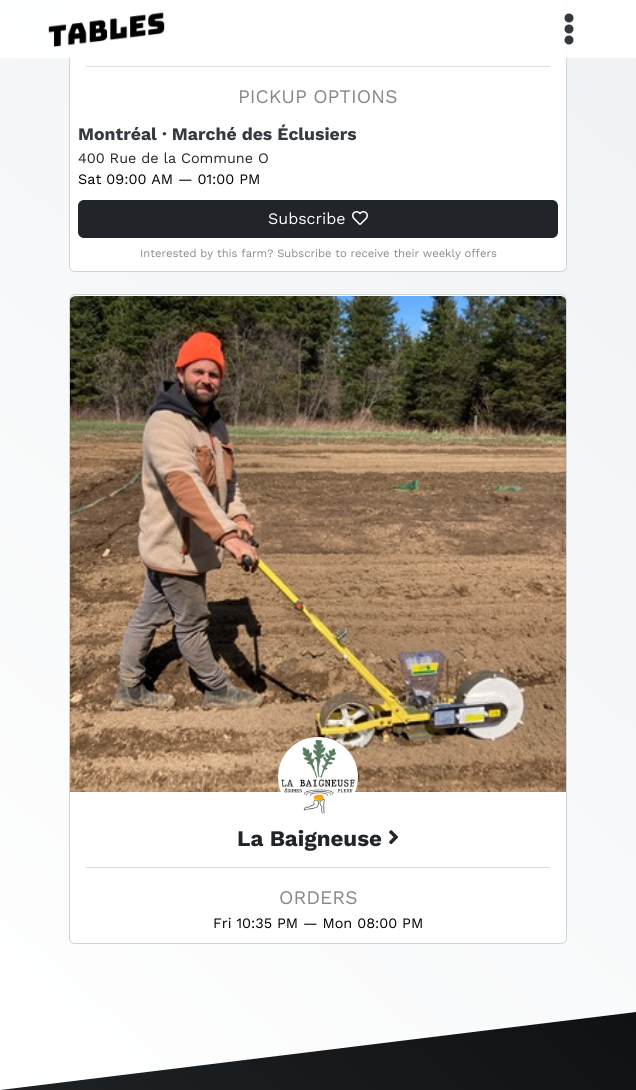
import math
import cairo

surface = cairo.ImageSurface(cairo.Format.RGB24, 636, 1090)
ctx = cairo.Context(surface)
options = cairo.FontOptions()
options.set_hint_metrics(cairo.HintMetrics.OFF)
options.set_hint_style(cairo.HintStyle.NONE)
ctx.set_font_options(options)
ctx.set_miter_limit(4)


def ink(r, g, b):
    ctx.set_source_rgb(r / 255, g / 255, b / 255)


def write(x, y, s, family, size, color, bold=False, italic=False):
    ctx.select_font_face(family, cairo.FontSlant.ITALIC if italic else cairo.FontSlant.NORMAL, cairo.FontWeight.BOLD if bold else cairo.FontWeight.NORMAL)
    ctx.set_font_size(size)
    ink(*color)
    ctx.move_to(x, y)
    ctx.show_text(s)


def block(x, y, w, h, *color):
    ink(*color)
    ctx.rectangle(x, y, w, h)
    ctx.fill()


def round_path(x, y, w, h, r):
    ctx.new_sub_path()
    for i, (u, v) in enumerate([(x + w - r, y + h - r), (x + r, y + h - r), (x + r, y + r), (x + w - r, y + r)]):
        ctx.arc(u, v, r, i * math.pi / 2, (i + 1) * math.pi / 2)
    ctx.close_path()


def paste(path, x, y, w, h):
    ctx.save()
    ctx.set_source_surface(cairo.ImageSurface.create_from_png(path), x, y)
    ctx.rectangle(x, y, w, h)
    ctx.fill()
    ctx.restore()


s1 = dict(family="Work Sans", size=19.25, color=(136, 136, 136))
s2 = dict(family="Work Sans", size=17.6, color=(52, 58, 64), bold=True)
s3 = dict(family="Work Sans", size=14.4, color=(33, 37, 41))
s4 = dict(family="Work Sans", size=14.4, color=(0, 0, 0))
s5 = dict(family="Work Sans", size=16, color=(255, 255, 255))
s6 = dict(family="Work Sans", size=11.2, color=(136, 136, 136))
s7 = dict(family="Work Sans", size=22.25, color=(33, 37, 41), bold=True)

ink(255, 255, 255)
ctx.paint()
gradient = cairo.LinearGradient(-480, 669, 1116, -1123)
gradient.add_color_stop_rgba(0, 1, 1, 1, 1)
gradient.add_color_stop_rgba(1, 0.878, 0.898, 0.914, 1)
ctx.set_source(gradient)
ctx.new_path()
ctx.move_to(0, -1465)
ctx.line_to(636, -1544)
ctx.line_to(636, 1012)
ctx.line_to(0, 1090)
ctx.close_path()
ctx.fill()
ink(255, 255, 255)
round_path(69.5, -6.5, 497, 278, 5.5)
ctx.fill_preserve()
ink(206, 212, 218)
ctx.set_line_width(1)
ctx.stroke()
ctx.set_source_rgba(1, 1, 1, 0.95)
ctx.rectangle(0, 0, 636, 58)
ctx.fill()
paste("pic1.png", 48, 12, 117, 35)
paste("pic2.png", 564, 13, 10, 32)
block(86, 66, 464, 1, 222, 222, 224)
write(238, 103, "PICKUP OPTIONS", **s1)
write(78, 140, "Montréal · Marché des Éclusiers", **s2)
write(78, 163, "400 Rue de la Commune O", **s3)
write(78, 184, "Sat 09:00 AM — 01:00 PM", **s4)
ink(33, 37, 41)
round_path(78.5, 200.5, 479, 37, 5.5)
ctx.fill_preserve()
ctx.stroke()
write(268, 224, "Subscribe", **s5)
paste("pic3.png", 352, 211, 16, 14)
write(140, 257, "Interested by this farm? Subscribe to receive their weekly offers", **s6)
ink(255, 255, 255)
round_path(69.5, 294.5, 497, 649, 5.5)
ctx.fill_preserve()
ink(206, 212, 218)
ctx.stroke()
paste("pic4.png", 70, 296, 496, 496)
ink(255, 255, 255)
ctx.arc(318, 777, 38.5, 0, 2 * math.pi)
ctx.fill_preserve()
ctx.set_line_width(3)
ctx.stroke()
paste("pic5.png", 281, 740, 74, 74)
write(237, 846, "La Baigneuse", **s7)
paste("pic6.png", 389, 830, 9, 15)
block(86, 867, 464, 1, 222, 222, 224)
write(279, 904, "ORDERS", **s1)
write(213, 928, "Fri 10:35 PM — Mon 08:00 PM", **s4)
gradient = cairo.LinearGradient(56, 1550, 580, 962)
gradient.add_color_stop_rgba(0, 0.157, 0.176, 0.192, 1)
gradient.add_color_stop_rgba(1, 0.059, 0.067, 0.071, 1)
ctx.set_source(gradient)
ctx.new_path()
ctx.move_to(0, 1090)
ctx.line_to(636, 1012)
ctx.line_to(636, 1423)
ctx.line_to(0, 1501)
ctx.close_path()
ctx.fill()
surface.write_to_png("screenshot.png")
